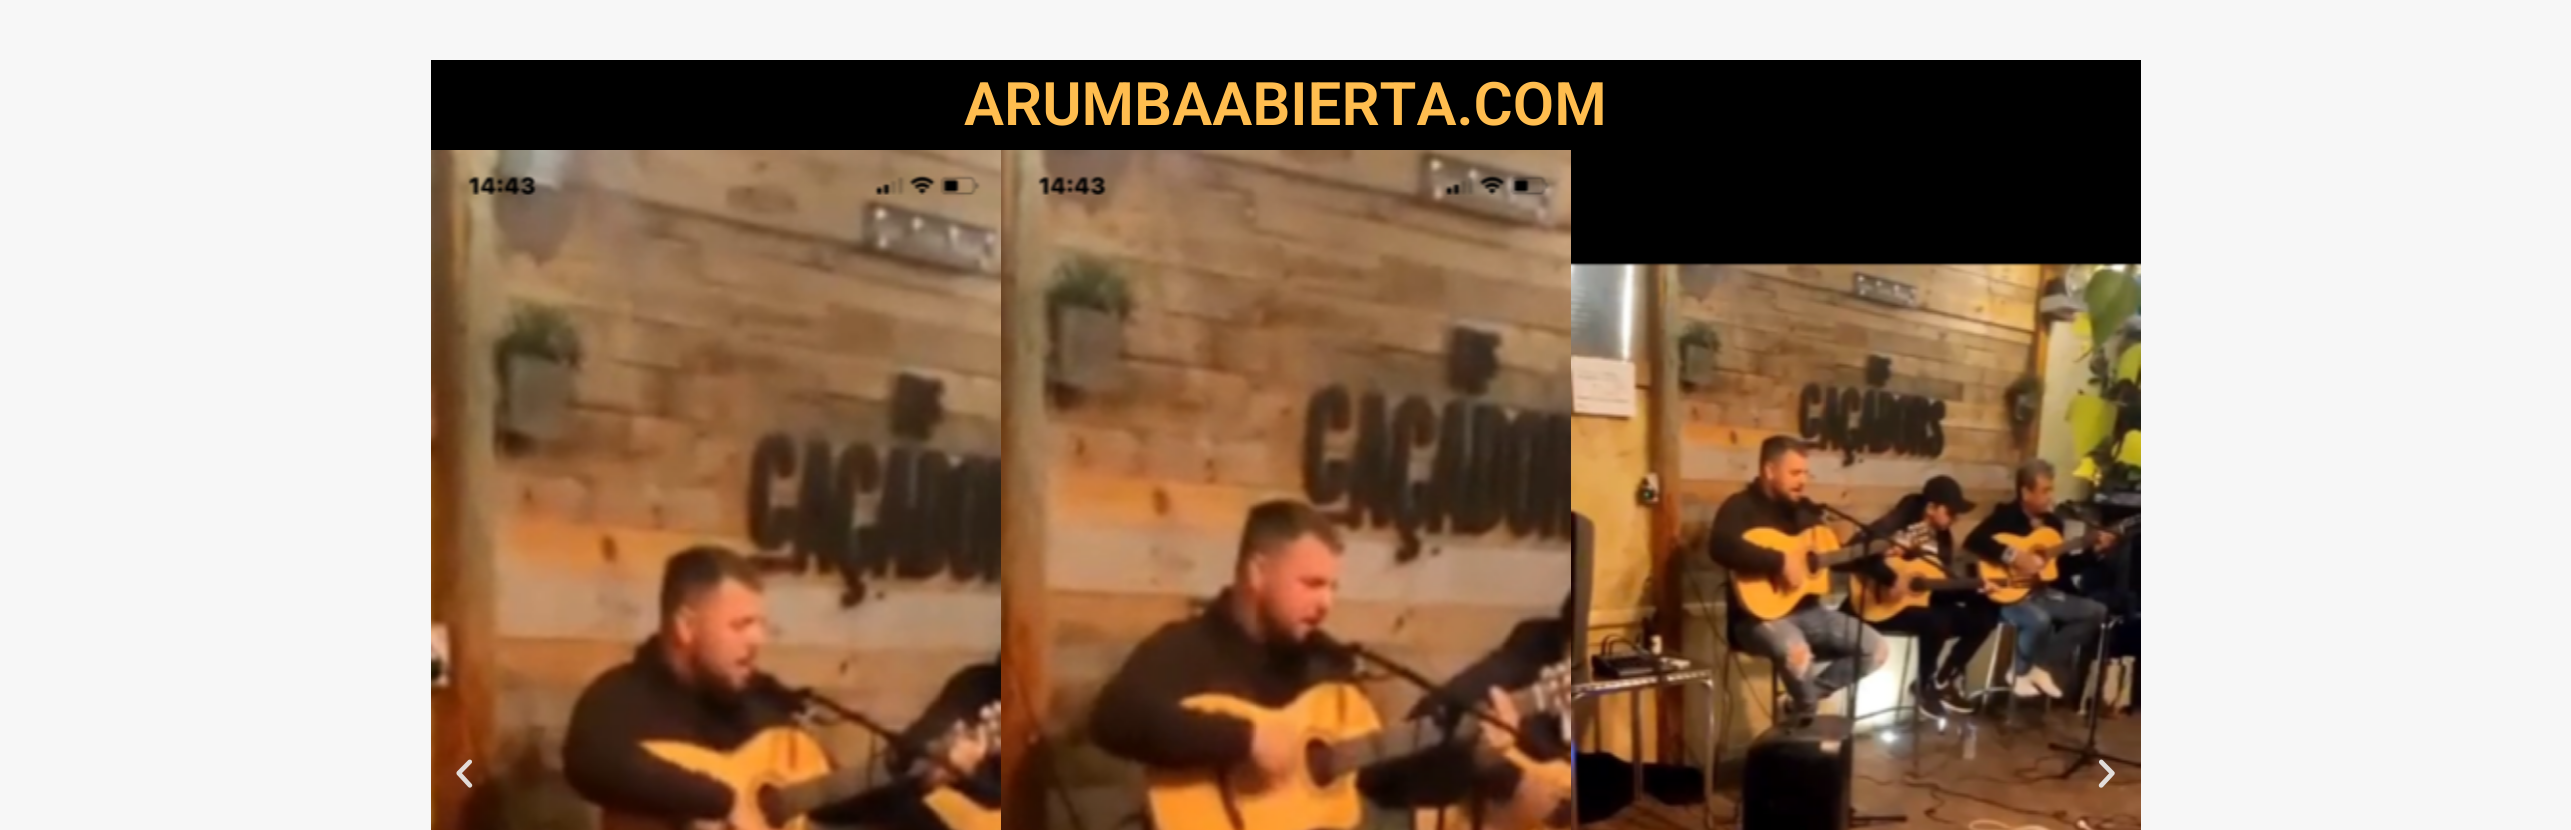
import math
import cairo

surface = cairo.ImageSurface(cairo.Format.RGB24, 2571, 830)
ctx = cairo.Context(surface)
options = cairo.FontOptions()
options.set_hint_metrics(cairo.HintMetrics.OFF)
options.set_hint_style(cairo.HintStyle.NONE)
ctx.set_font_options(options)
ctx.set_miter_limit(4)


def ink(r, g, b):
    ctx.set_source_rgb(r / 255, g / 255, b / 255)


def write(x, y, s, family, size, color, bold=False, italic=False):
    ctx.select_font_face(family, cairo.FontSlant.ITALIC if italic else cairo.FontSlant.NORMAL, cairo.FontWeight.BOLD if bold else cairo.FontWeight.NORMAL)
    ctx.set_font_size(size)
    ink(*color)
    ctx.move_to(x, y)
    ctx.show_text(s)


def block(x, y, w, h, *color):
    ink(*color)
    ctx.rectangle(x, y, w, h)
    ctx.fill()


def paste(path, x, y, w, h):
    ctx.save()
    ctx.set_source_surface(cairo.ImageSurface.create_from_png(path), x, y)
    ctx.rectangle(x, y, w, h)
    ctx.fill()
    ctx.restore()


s1 = dict(family="Roboto SemiBold", size=60, color=(255, 189, 79))

ink(247, 247, 247)
ctx.paint()
block(431, 60, 1710, 90, 0, 0, 0)
write(964, 125, "ARUMBAABIERTA.COM", **s1)
paste("pic1.png", 431, 150, 570, 680)
paste("pic2.png", 1001, 150, 570, 680)
paste("pic3.png", 1571, 150, 570, 680)
paste("pic4.png", 456, 759, 17, 29)
paste("pic5.png", 2098, 759, 17, 29)
surface.write_to_png("screenshot.png")
